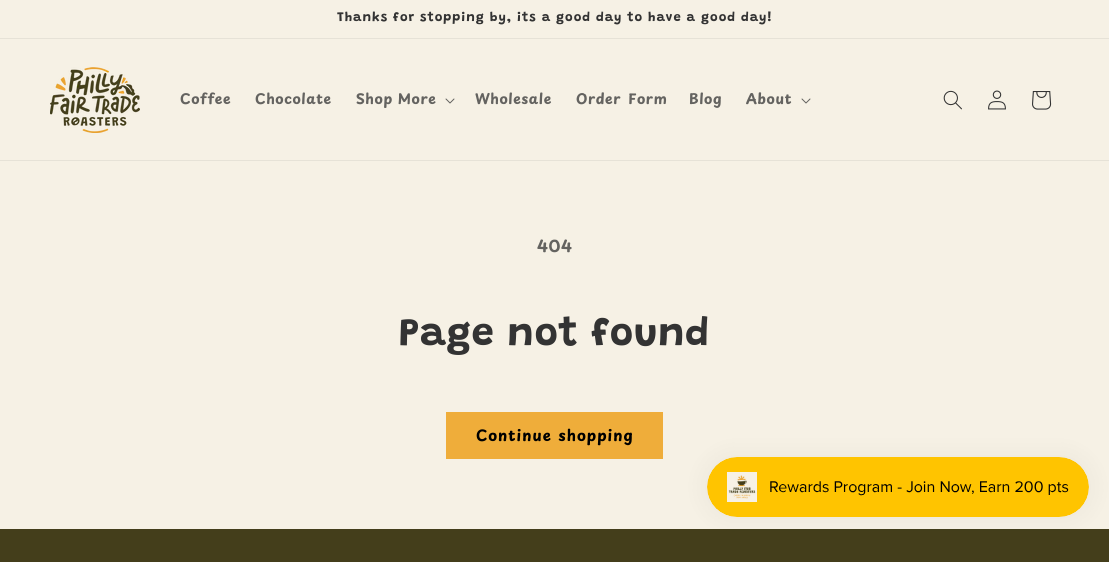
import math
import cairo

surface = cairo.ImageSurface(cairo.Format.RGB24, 1109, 562)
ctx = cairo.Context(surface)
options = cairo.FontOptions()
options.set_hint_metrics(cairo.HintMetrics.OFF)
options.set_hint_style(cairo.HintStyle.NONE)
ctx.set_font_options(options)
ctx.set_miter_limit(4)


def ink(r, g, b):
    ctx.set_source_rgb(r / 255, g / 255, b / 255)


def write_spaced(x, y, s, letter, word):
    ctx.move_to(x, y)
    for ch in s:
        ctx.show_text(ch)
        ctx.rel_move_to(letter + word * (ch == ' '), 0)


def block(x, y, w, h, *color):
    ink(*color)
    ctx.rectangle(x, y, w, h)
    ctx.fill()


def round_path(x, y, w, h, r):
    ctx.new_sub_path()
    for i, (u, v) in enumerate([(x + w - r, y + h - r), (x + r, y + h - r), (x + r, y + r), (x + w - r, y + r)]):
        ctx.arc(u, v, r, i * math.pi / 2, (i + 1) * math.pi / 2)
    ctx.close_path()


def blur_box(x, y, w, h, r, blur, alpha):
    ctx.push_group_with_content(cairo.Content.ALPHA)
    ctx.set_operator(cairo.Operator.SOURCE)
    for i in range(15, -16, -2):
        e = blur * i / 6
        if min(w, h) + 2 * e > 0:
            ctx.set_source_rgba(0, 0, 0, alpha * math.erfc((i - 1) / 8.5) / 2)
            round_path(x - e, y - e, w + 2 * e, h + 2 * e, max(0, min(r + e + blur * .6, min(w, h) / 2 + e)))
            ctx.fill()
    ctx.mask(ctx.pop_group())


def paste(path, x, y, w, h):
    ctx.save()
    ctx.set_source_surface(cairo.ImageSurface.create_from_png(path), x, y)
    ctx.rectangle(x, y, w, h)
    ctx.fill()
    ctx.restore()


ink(246, 241, 229)
ctx.paint()
block(0, 38, 1109, 1, 230, 226, 215)
ctx.select_font_face("Grandstander", cairo.FontSlant.NORMAL, cairo.FontWeight.BOLD)
ctx.set_font_size(13)
ink(51, 51, 51)
write_spaced(337, 21, "Thanks for stopping by, its a good day to have a good day!", 1, 0)
block(0, 160, 1109, 1, 230, 226, 215)
paste("pic1.png", 50, 67, 90, 66)
ctx.select_font_face("Playpen Sans", cairo.FontSlant.NORMAL, cairo.FontWeight.BOLD)
ctx.set_font_size(14)
ink(100, 99, 96)
write_spaced(180, 104, "Coffee", 0.6, 0)
write_spaced(255, 104, "Chocolate", 0.6, 0)
write_spaced(356, 104, "Shop More", 0.6, 0)
paste("pic2.png", 445, 98, 10, 6)
write_spaced(475, 104, "Wholesale", 0.6, 0)
write_spaced(576, 104, "Order Form", 0.6, 2)
write_spaced(689, 104, "Blog", 0.6, 0)
write_spaced(746, 104, "About", 0.6, 0)
paste("pic2.png", 801, 98, 10, 6)
paste("pic3.png", 943, 90, 19, 20)
paste("pic4.png", 988, 90, 18, 20)
paste("pic5.png", 1032, 91, 20, 19)
ctx.set_font_size(16)
write_spaced(537, 252, "404", 0.6, 0)
ctx.select_font_face("Grandstander", cairo.FontSlant.NORMAL, cairo.FontWeight.BOLD)
ctx.set_font_size(40)
ink(51, 51, 51)
write_spaced(399, 345, "Page not found", 0.6, 0)
block(446, 412, 217, 47, 239, 173, 58)
ctx.select_font_face("Playpen Sans", cairo.FontSlant.NORMAL, cairo.FontWeight.BOLD)
ctx.set_font_size(15)
ink(0, 0, 0)
write_spaced(476, 441, "Continue shopping", 1, 1)
block(0, 529, 1109, 33, 68, 62, 27)
ink(0, 0, 0)
blur_box(707, 457, 382, 60, 30, 12.5, 0.05)
paste("pic6.png", 707, 457, 382, 60)
surface.write_to_png("screenshot.png")
